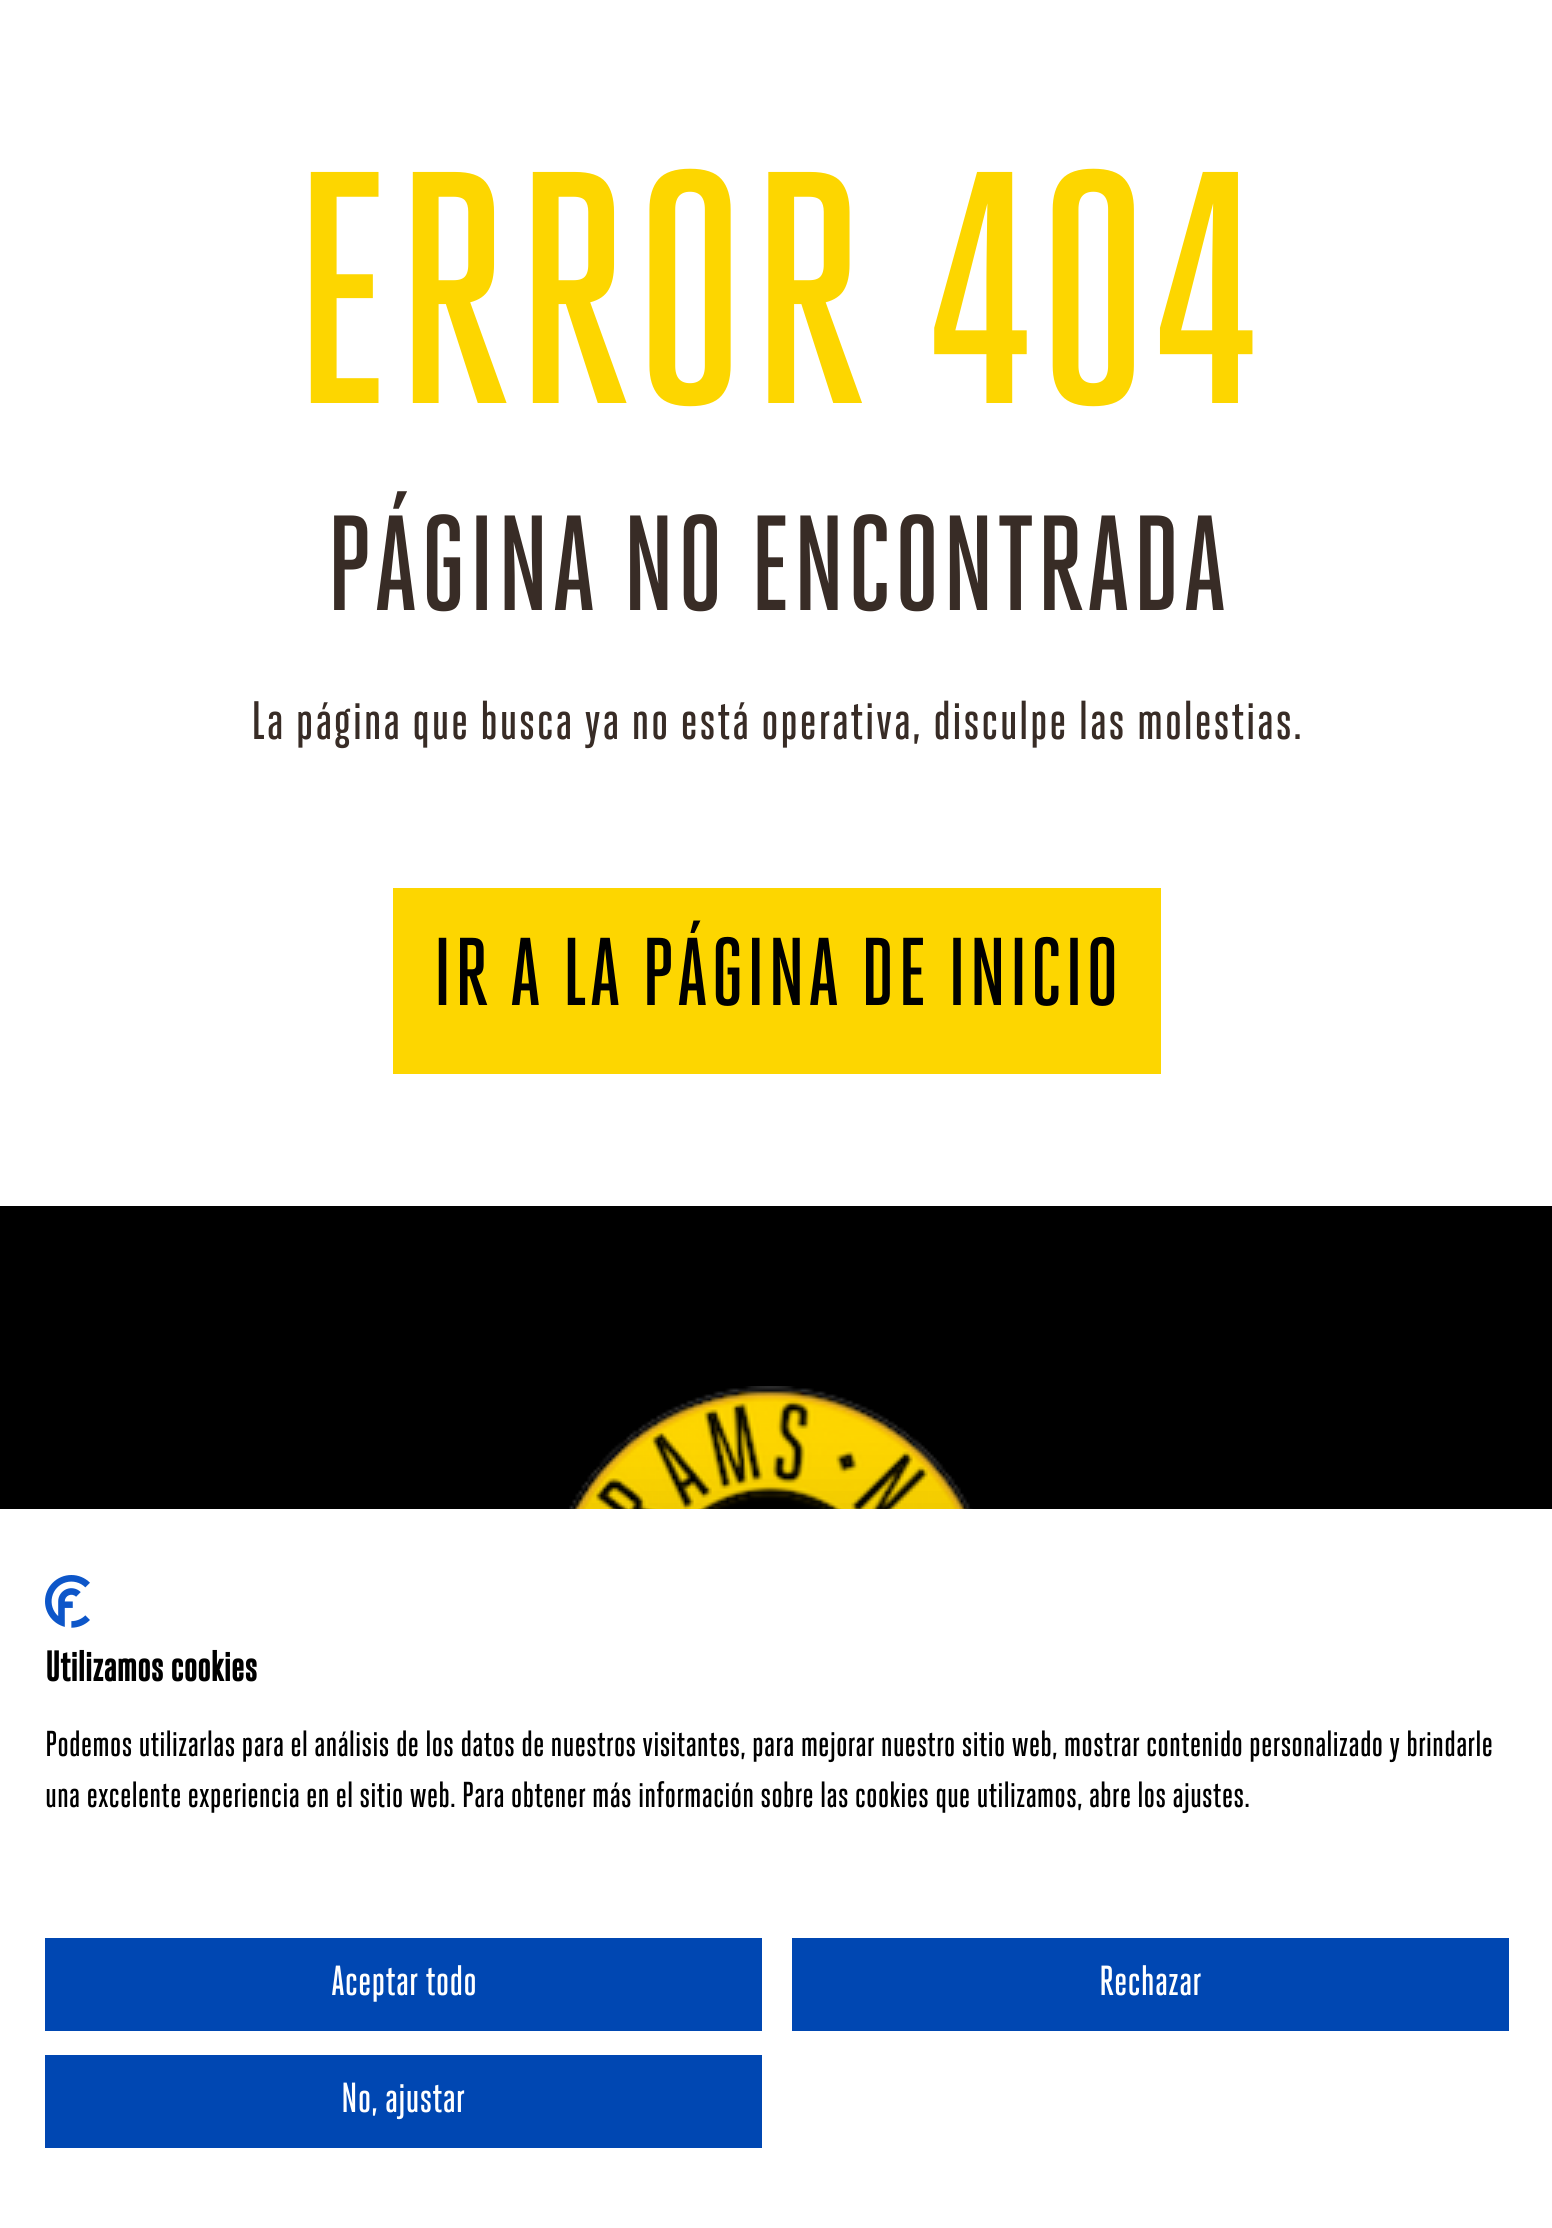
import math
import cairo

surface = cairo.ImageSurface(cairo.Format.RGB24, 1552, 2228)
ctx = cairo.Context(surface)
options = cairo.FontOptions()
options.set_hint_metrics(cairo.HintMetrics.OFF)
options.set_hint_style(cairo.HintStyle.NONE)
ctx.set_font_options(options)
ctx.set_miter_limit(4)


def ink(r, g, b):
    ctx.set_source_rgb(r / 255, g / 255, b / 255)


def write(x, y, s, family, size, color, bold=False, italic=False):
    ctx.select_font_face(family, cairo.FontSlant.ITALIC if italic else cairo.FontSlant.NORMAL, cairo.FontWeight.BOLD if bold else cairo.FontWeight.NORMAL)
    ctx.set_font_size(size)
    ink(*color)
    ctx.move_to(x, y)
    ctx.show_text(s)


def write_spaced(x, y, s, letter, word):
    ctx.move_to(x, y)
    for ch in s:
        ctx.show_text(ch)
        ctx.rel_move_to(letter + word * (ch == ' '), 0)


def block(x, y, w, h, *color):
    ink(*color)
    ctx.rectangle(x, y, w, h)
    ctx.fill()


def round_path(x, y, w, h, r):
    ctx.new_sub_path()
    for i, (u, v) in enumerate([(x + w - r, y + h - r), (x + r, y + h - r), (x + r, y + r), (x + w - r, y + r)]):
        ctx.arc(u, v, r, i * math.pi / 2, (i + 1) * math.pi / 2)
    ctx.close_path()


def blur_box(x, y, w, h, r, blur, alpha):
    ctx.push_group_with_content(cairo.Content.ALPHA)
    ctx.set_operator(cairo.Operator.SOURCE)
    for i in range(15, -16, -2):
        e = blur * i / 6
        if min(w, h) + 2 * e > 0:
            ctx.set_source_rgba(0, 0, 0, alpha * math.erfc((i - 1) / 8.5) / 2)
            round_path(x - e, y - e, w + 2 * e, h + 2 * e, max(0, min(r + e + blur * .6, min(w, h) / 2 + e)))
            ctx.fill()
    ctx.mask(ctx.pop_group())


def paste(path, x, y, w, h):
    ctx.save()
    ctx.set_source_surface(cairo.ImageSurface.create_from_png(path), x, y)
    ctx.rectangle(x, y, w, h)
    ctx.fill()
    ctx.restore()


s1 = dict(family="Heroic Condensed", size=42, color=(0, 0, 0), bold=True)
s2 = dict(family="Heroic Condensed Medium", size=36, color=(0, 0, 0))
s3 = dict(family="Heroic Condensed Medium", size=42, color=(255, 255, 255))

ink(255, 255, 255)
ctx.paint()
ctx.select_font_face("Heroic Condensed Medium")
ctx.set_font_size(330)
ink(253, 214, 0)
write_spaced(291, 403, "ERROR 404", 1.5, 0)
ctx.set_font_size(135)
ink(56, 44, 38)
write_spaced(326, 610, "PÁGINA NO ENCONTRADA", 1.5, 0)
ctx.set_font_size(54)
write_spaced(251, 739, "La página que busca ya no está operativa, disculpe las molestias.", 1.5, 0)
block(393, 888, 768, 186, 253, 214, 0)
ctx.set_font_size(96)
ink(0, 0, 0)
write_spaced(433, 1005, "IR A LA PÁGINA DE INICIO", 2.25, 0)
block(0, 1206, 1552, 303, 0, 0, 0)
paste("pic1.png", 569, 1386, 404, 123)
ink(0, 0, 0)
blur_box(0, 1509, 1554, 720, 0, 36, 0.1)
block(0, 1509, 1552, 719, 255, 255, 255)
paste("pic2.png", 45, 1575, 45, 53)
write(45, 1681, "Utilizamos cookies", **s1)
write(45, 1756, "Podemos utilizarlas para el análisis de los datos de nuestros visitantes, para mejorar nuestro sitio web, mostrar contenido personalizado y brindarle", **s2)
write(45, 1807, "una excelente experiencia en el sitio web. Para obtener más información sobre las cookies que utilizamos, abre los ajustes.", **s2)
block(45, 1938, 717, 93, 0, 71, 178)
write(331, 1995, "Aceptar todo", **s3)
block(792, 1938, 717, 93, 0, 71, 178)
write(1099, 1995, "Rechazar", **s3)
block(45, 2055, 717, 93, 0, 71, 178)
write(341, 2112, "No, ajustar", **s3)
surface.write_to_png("screenshot.png")
